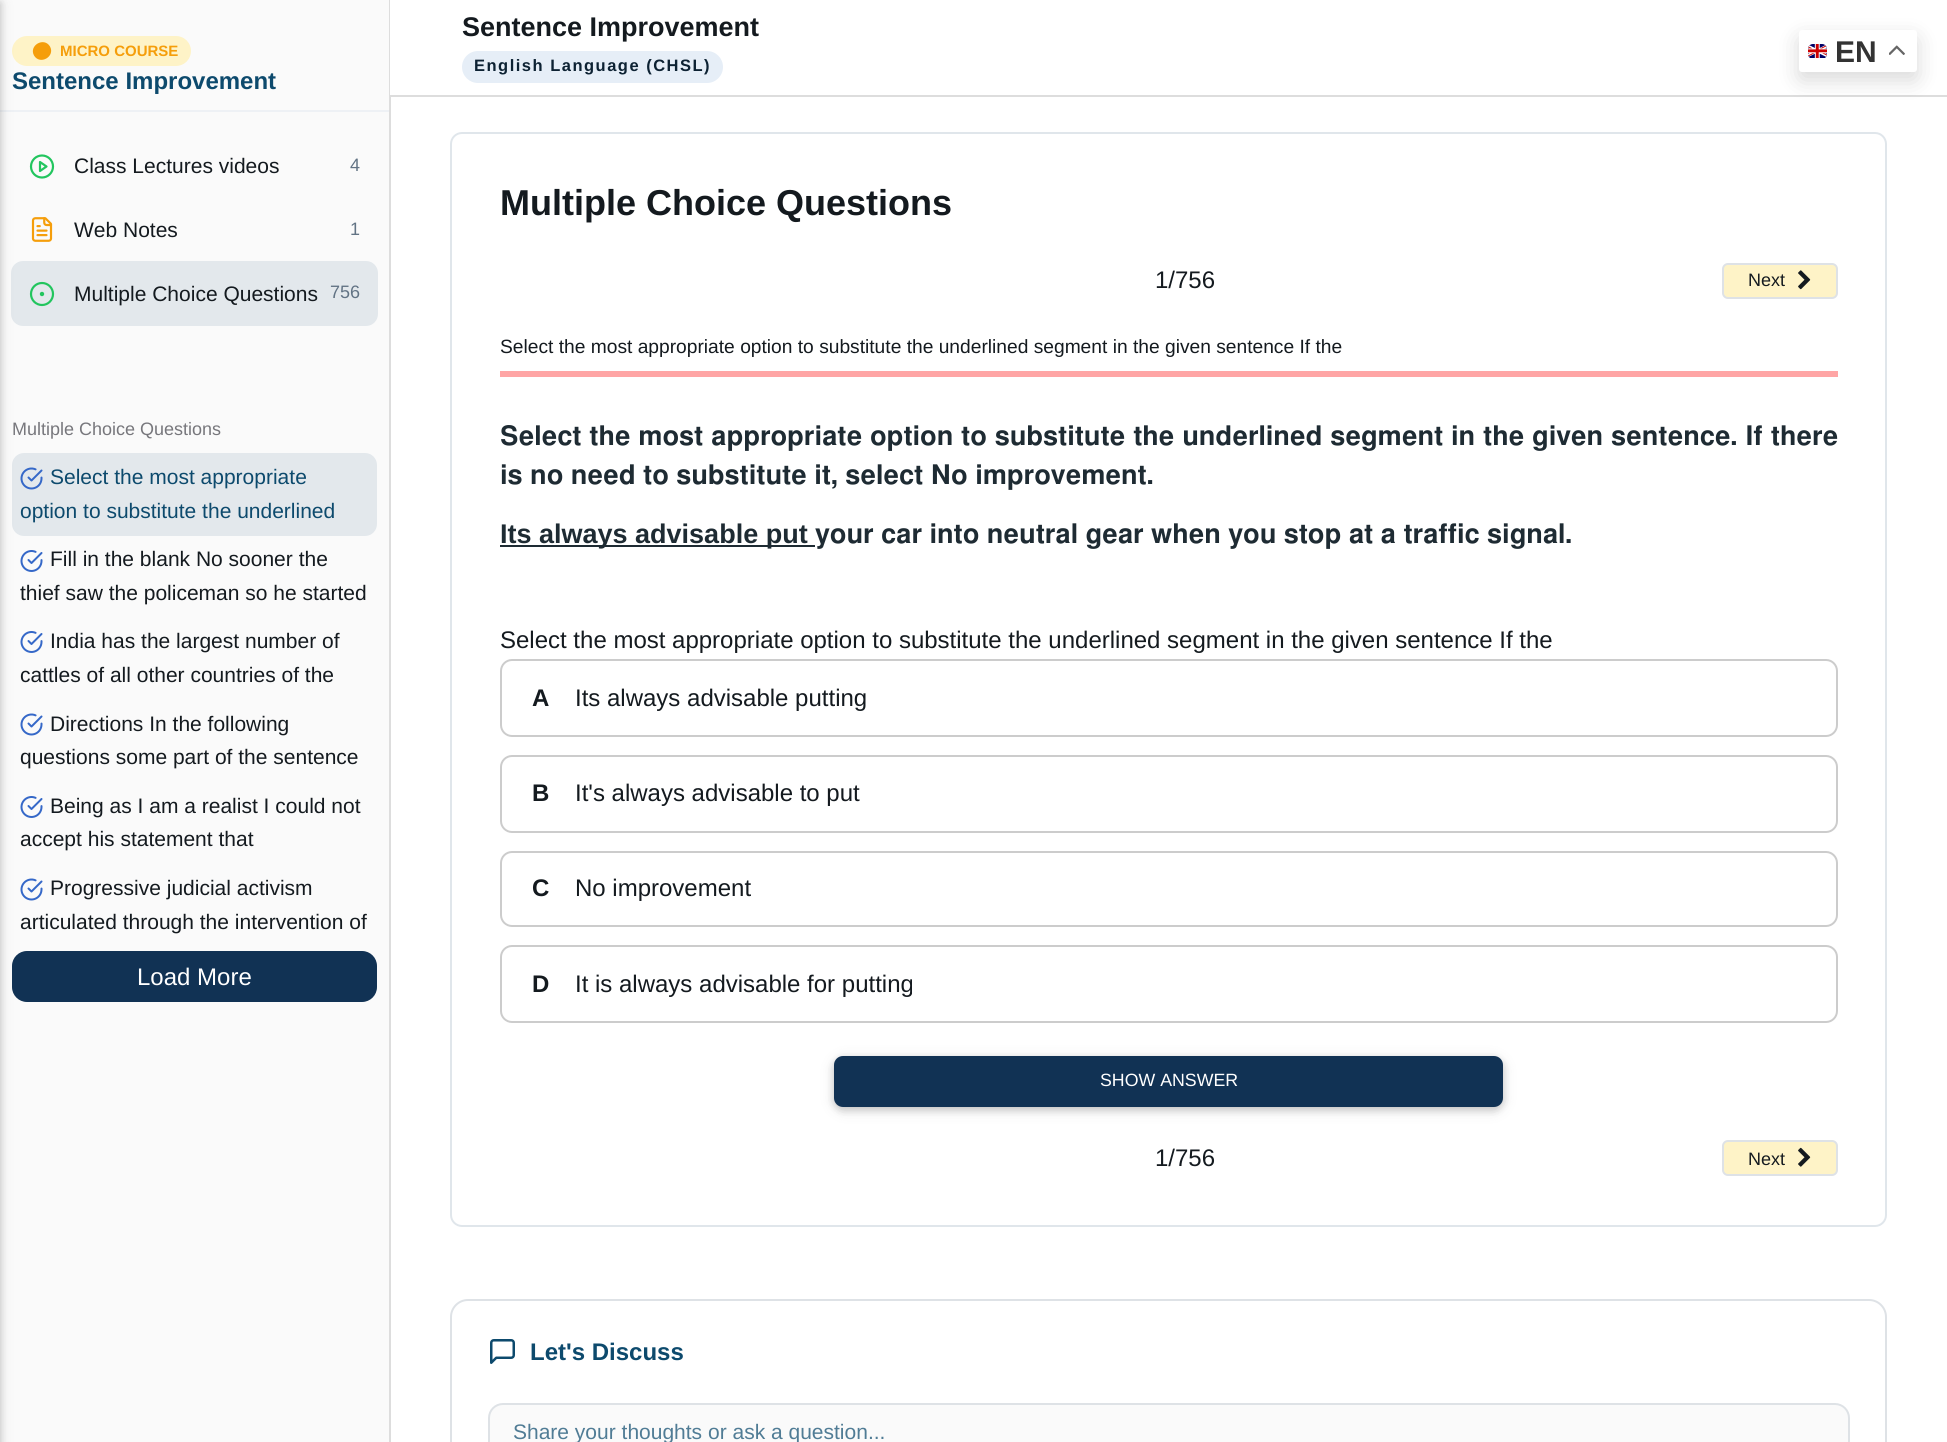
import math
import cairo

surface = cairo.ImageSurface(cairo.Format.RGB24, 1947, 1442)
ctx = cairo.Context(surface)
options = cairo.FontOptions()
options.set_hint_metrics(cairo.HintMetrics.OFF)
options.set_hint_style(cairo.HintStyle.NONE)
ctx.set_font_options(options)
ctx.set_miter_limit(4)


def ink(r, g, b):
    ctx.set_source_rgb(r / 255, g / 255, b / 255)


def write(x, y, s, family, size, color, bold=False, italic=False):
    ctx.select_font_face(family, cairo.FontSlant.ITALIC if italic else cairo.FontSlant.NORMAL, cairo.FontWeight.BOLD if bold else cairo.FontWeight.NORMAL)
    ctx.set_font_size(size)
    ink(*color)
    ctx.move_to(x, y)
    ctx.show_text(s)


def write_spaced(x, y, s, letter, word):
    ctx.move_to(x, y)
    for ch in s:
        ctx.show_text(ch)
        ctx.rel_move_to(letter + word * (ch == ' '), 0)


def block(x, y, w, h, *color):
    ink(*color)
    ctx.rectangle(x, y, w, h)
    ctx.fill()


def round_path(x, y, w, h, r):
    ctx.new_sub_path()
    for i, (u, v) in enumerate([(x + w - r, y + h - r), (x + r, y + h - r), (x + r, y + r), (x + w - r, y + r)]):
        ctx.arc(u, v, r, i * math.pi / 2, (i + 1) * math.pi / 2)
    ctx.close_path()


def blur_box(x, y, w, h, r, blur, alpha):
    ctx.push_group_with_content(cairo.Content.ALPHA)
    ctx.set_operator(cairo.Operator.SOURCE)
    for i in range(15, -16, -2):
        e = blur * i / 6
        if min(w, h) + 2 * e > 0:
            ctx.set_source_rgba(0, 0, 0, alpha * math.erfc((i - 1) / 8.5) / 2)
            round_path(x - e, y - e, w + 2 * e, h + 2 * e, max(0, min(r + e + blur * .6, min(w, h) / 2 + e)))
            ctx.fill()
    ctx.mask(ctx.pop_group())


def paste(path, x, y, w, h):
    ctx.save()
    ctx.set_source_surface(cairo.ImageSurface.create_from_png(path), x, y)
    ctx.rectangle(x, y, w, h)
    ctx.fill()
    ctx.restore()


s1 = dict(family="Liberation Sans", size=15, color=(245, 158, 11), bold=True)
s2 = dict(family="Liberation Sans", size=24, color=(13, 74, 109), bold=True)
s3 = dict(family="Liberation Sans", size=21, color=(20, 26, 31))
s4 = dict(family="Liberation Sans", size=18, color=(98, 115, 132))
s5 = dict(family="Liberation Sans", size=18, color=(119, 119, 124))
s6 = dict(family="Liberation Sans", size=21, color=(13, 74, 109))
s7 = dict(family="Liberation Sans", size=24, color=(255, 255, 255))
s8 = dict(family="Liberation Sans", size=27, color=(20, 26, 31), bold=True)
s9 = dict(family="Liberation Sans", size=36, color=(20, 26, 31), bold=True)
s10 = dict(family="Liberation Sans", size=24, color=(20, 26, 31))
s11 = dict(family="Liberation Sans", size=18, color=(20, 26, 31))
s12 = dict(family="Liberation Sans", size=19.2, color=(20, 26, 31))
s13 = dict(family="FreeSans SemiBold", size=27, color=(30, 43, 51))
s14 = dict(family="Liberation Sans", size=27, color=(30, 43, 51), bold=True)
s15 = dict(family="Liberation Sans", size=24, color=(20, 26, 31), bold=True)
s16 = dict(family="Liberation Sans", size=17.75, color=(255, 255, 255))
s17 = dict(family="Liberation Sans", size=21, color=(80, 124, 149))
s18 = dict(family="Liberation Sans", size=30, color=(51, 51, 51), bold=True)

ink(255, 255, 255)
ctx.paint()
block(0, 0, 389, 1442, 250, 250, 250)
block(0, 110, 389, 2, 238, 241, 245)
ink(254, 243, 199)
round_path(12, 36, 179, 30, 15)
ctx.fill()
ink(227, 232, 236)
round_path(11, 261, 367, 65, 12)
ctx.fill()
round_path(12, 453, 365, 83, 12)
ctx.fill()
paste("pic2.png", 20, 467, 23, 23)
paste("pic3.png", 20, 550, 23, 22)
paste("pic3.png", 20, 631, 23, 22)
paste("pic4.png", 20, 713, 23, 23)
paste("pic3.png", 20, 796, 23, 22)
paste("pic4.png", 20, 878, 23, 23)
ink(17, 50, 84)
round_path(12, 951, 365, 51, 15)
ctx.fill()
ink(0, 0, 0)
blur_box(-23, 3, 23, 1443, 0, 7.5, 0.12)
blur_box(-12, 3, 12, 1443, 0, 4, 0.16)
block(389, 0, 2, 1442, 221, 221, 221)
ink(245, 158, 11)
ctx.new_path()
ctx.move_to(50, 46.5)
ctx.curve_to(55.5, 56.5, 40, 65.5, 34, 55.5)
ctx.curve_to(28.5, 45.5, 44, 36.5, 50, 46.5)
ctx.close_path()
ctx.fill()
write(60, 56, "MICRO COURSE", **s1)
write(12, 89, "Sentence Improvement", **s2)
ctx.new_path()
ctx.arc(42, 166.5, 11, 0, 2 * math.pi)
ink(34, 197, 94)
ctx.set_line_width(2.2)
ctx.stroke()
ctx.new_path()
ctx.move_to(40, 162)
ctx.line_to(46.5, 166.5)
ctx.line_to(40, 171)
ctx.close_path()
ctx.set_line_cap(cairo.LineCap.ROUND)
ctx.set_line_join(cairo.LineJoin.ROUND)
ctx.stroke()
write(74, 173, "Class Lectures videos", **s3)
write(350, 171, "4", **s4)
paste("pic1.png", 31, 217, 22, 25)
write(74, 237, "Web Notes", **s3)
write(350, 235, "1", **s4)
ctx.new_path()
ctx.arc(42, 294, 11, 0, 2 * math.pi)
ink(34, 197, 94)
ctx.set_line_cap(cairo.LineCap.BUTT)
ctx.set_line_join(cairo.LineJoin.MITER)
ctx.stroke()
ctx.arc(42, 294, 1.1, 0, 2 * math.pi)
ctx.stroke()
write(74, 301, "Multiple Choice Questions", **s3)
write(330, 298, "756", **s4)
write(12, 435, "Multiple Choice Questions", **s5)
write(50, 484, "Select the most appropriate", **s6)
write(20, 518, "option to substitute the underlined", **s6)
write(50, 566, "Fill in the blank No sooner the", **s3)
write(20, 600, "thief saw the policeman so he started", **s3)
write(50, 648, "India has the largest number of", **s3)
write(20, 682, "cattles of all other countries of the", **s3)
write(50, 731, "Directions In the following", **s3)
write(20, 764, "questions some part of the sentence", **s3)
write(50, 813, "Being as I am a realist I could not", **s3)
write(20, 846, "accept his statement that", **s3)
write(50, 895, "Progressive judicial activism", **s3)
write(20, 929, "articulated through the intervention of", **s3)
write(137, 985, "Load More", **s7)
block(390, 0, 1, 95, 255, 255, 255)
block(390, 95, 1557, 2, 221, 221, 221)
write(462, 36, "Sentence Improvement", **s8)
ink(230, 238, 247)
round_path(462, 51, 261, 32, 16)
ctx.fill()
ctx.set_font_size(16.5)
ink(13, 34, 51)
write_spaced(474, 71, "English Language (CHSL)", 1.5, 0)
round_path(451, 133, 1435, 1093, 11)
ink(224, 230, 235)
ctx.set_line_width(2)
ctx.stroke()
write(500, 215, "Multiple Choice Questions", **s9)
write(1155, 288, "1/756", **s10)
ink(254, 243, 199)
round_path(1723, 264, 114, 34, 5)
ctx.fill_preserve()
ink(222, 226, 230)
ctx.stroke()
write(1748, 286, "Next", **s11)
paste("pic5.png", 1798, 270, 13, 20)
block(500, 371, 1338, 6, 255, 165, 165)
write(500, 353, "Select the most appropriate option to substitute the underlined segment in the given sentence If the", **s12)
ctx.select_font_face("FreeSans SemiBold")
ctx.set_font_size(27)
ink(30, 43, 51)
write_spaced(500, 445, "Select the most appropriate option to substitute the underlined segment in the given sentence. If there", 0, 0.4)
write(500, 484, "is no need to substitute it, select No improvement.", **s13)
block(500, 545, 315, 2, 30, 43, 51)
write(500, 543, "Its always advisable put", **s14)
write(815, 543, "your car into neutral gear when you stop at a traffic signal.", **s13)
write(500, 648, "Select the most appropriate option to substitute the underlined segment in the given sentence If the", **s10)
round_path(501, 660, 1336, 76, 11)
ink(204, 204, 204)
ctx.stroke()
write(532, 706, "A", **s15)
write(575, 706, "Its always advisable putting", **s10)
round_path(501, 756, 1336, 76, 11)
ink(204, 204, 204)
ctx.stroke()
write(532, 801, "B", **s15)
write(575, 801, "It's always advisable to put", **s10)
round_path(501, 852, 1336, 74, 11)
ink(204, 204, 204)
ctx.stroke()
write(532, 896, "C", **s15)
write(575, 896, "No improvement", **s10)
round_path(501, 946, 1336, 76, 11)
ink(204, 204, 204)
ctx.stroke()
write(532, 992, "D", **s15)
write(575, 992, "It is always advisable for putting", **s10)
ink(0, 0, 0)
blur_box(834, 1059, 669, 51, 9, 7.5, 0.12)
blur_box(834, 1059, 669, 51, 9, 4, 0.16)
ink(17, 50, 84)
round_path(834, 1056, 669, 51, 9)
ctx.fill()
write(1100, 1086, "SHOW ANSWER", **s16)
write(1155, 1166, "1/756", **s10)
ink(254, 243, 199)
round_path(1723, 1141, 114, 34, 5)
ctx.fill_preserve()
ink(222, 226, 230)
ctx.stroke()
write(1748, 1165, "Next", **s11)
paste("pic6.png", 1798, 1147, 13, 20)
round_path(451, 1300, 1435, 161, 17)
ink(222, 226, 230)
ctx.stroke()
paste("pic7.png", 490, 1339, 25, 25)
write(530, 1360, "Let's Discuss", **s2)
ink(250, 250, 250)
round_path(489, 1404, 1360, 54, 14)
ctx.fill_preserve()
ink(222, 226, 230)
ctx.stroke()
write(513, 1439, "Share your thoughts or ask a question...", **s17)
ink(0, 0, 0)
blur_box(1799, 38, 118, 42, 3, 11, 0.15)
ink(255, 255, 255)
round_path(1799, 30, 118, 42, 3)
ctx.fill()
paste("pic8.png", 1808, 44, 19, 15)
write(1835, 62, "EN", **s18)
paste("pic9.png", 1889, 45, 16, 10)
surface.write_to_png("screenshot.png")
